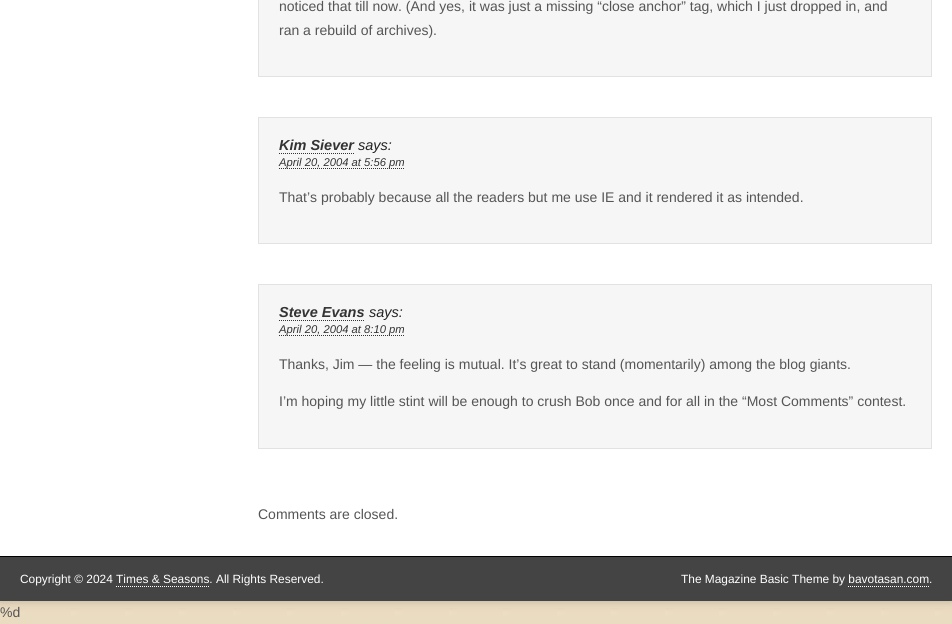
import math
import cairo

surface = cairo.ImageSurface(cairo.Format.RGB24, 952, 624)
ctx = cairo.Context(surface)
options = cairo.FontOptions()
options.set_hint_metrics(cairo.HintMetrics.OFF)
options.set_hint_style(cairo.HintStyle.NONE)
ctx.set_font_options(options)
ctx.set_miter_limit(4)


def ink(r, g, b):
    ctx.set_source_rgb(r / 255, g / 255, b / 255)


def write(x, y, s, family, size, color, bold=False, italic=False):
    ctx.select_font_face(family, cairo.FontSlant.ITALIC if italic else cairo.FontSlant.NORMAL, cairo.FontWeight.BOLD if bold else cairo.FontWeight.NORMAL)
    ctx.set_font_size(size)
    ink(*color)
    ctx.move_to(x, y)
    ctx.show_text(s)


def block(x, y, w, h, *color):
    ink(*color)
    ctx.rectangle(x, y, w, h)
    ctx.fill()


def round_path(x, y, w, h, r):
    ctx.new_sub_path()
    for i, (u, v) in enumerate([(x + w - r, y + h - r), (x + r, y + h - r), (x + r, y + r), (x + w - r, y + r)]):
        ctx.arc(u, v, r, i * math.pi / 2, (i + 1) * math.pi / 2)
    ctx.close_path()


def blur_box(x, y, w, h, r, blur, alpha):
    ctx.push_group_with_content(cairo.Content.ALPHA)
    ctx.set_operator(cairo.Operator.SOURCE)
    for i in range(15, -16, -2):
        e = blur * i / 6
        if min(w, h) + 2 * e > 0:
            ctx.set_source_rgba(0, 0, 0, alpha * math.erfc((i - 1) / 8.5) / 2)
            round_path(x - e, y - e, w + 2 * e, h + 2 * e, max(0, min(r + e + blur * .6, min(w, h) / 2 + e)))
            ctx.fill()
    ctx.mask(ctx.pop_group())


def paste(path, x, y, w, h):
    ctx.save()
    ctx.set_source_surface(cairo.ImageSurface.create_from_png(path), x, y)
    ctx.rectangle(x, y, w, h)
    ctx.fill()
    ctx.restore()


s1 = dict(family="Liberation Sans", size=14, color=(85, 85, 85))
s2 = dict(family="Liberation Sans", size=14.5, color=(51, 51, 51), bold=True, italic=True)
s3 = dict(family="Liberation Sans", size=14.5, color=(34, 34, 34), italic=True)
s4 = dict(family="Liberation Sans", size=11.25, color=(51, 51, 51), italic=True)
s5 = dict(family="Liberation Sans", size=11.9, color=(255, 255, 255))

ink(255, 255, 255)
ctx.paint()
paste("pic1.png", 0, 601, 952, 23)
ink(0, 0, 0)
blur_box(0, -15, 952, 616, 0, 5, 0.2)
block(0, 0, 952, 556, 255, 255, 255)
ink(246, 246, 246)
ctx.rectangle(258.5, -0.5, 673, 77)
ctx.fill_preserve()
ink(226, 226, 226)
ctx.set_line_width(1)
ctx.stroke()
write(279, 11, "noticed that till now. (And yes, it was just a missing “close anchor” tag, which I just dropped in, and", **s1)
write(279, 35, "ran a rebuild of archives).", **s1)
ink(246, 246, 246)
ctx.rectangle(258.5, 117.5, 673, 126)
ctx.fill_preserve()
ink(226, 226, 226)
ctx.stroke()
write(279, 150, "Kim Siever", **s2)
ctx.new_path()
ctx.move_to(279, 153.5)
ctx.line_to(354, 153.5)
ctx.set_dash([1, 1])
ctx.stroke()
write(358, 150, "says:", **s3)
ctx.new_path()
ctx.move_to(279, 168.5)
ctx.line_to(404, 168.5)
ink(51, 51, 51)
ctx.stroke()
write(279, 166, "April 20, 2004 at 5:56 pm", **s4)
write(279, 202, "That’s probably because all the readers but me use IE and it rendered it as intended.", **s1)
ink(246, 246, 246)
ctx.rectangle(258.5, 284.5, 673, 164)
ctx.fill_preserve()
ink(226, 226, 226)
ctx.set_dash([])
ctx.stroke()
write(279, 317, "Steve Evans", **s2)
ctx.new_path()
ctx.move_to(279, 320.5)
ctx.line_to(365, 320.5)
ctx.set_dash([1, 1])
ctx.stroke()
write(369, 317, "says:", **s3)
ctx.new_path()
ctx.move_to(279, 335.5)
ctx.line_to(404, 335.5)
ink(51, 51, 51)
ctx.stroke()
write(279, 333, "April 20, 2004 at 8:10 pm", **s4)
write(279, 369, "Thanks, Jim — the feeling is mutual. It’s great to stand (momentarily) among the blog giants.", **s1)
write(279, 406, "I’m hoping my little stint will be enough to crush Bob once and for all in the “Most Comments” contest.", **s1)
write(258, 519, "Comments are closed.", **s1)
block(0, 557, 952, 44, 68, 68, 68)
block(0, 556, 952, 1, 0, 0, 0)
write(20, 583, "Copyright © 2024 Times & Seasons. All Rights Reserved.", **s5)
ctx.new_path()
ctx.move_to(116, 586.5)
ctx.line_to(209, 586.5)
ctx.stroke()
write(681, 583, "The Magazine Basic Theme by bavotasan.com.", **s5)
ctx.new_path()
ctx.move_to(848, 586.5)
ctx.line_to(929, 586.5)
ctx.stroke()
write(0, 617, "%d", **s1)
surface.write_to_png("screenshot.png")
